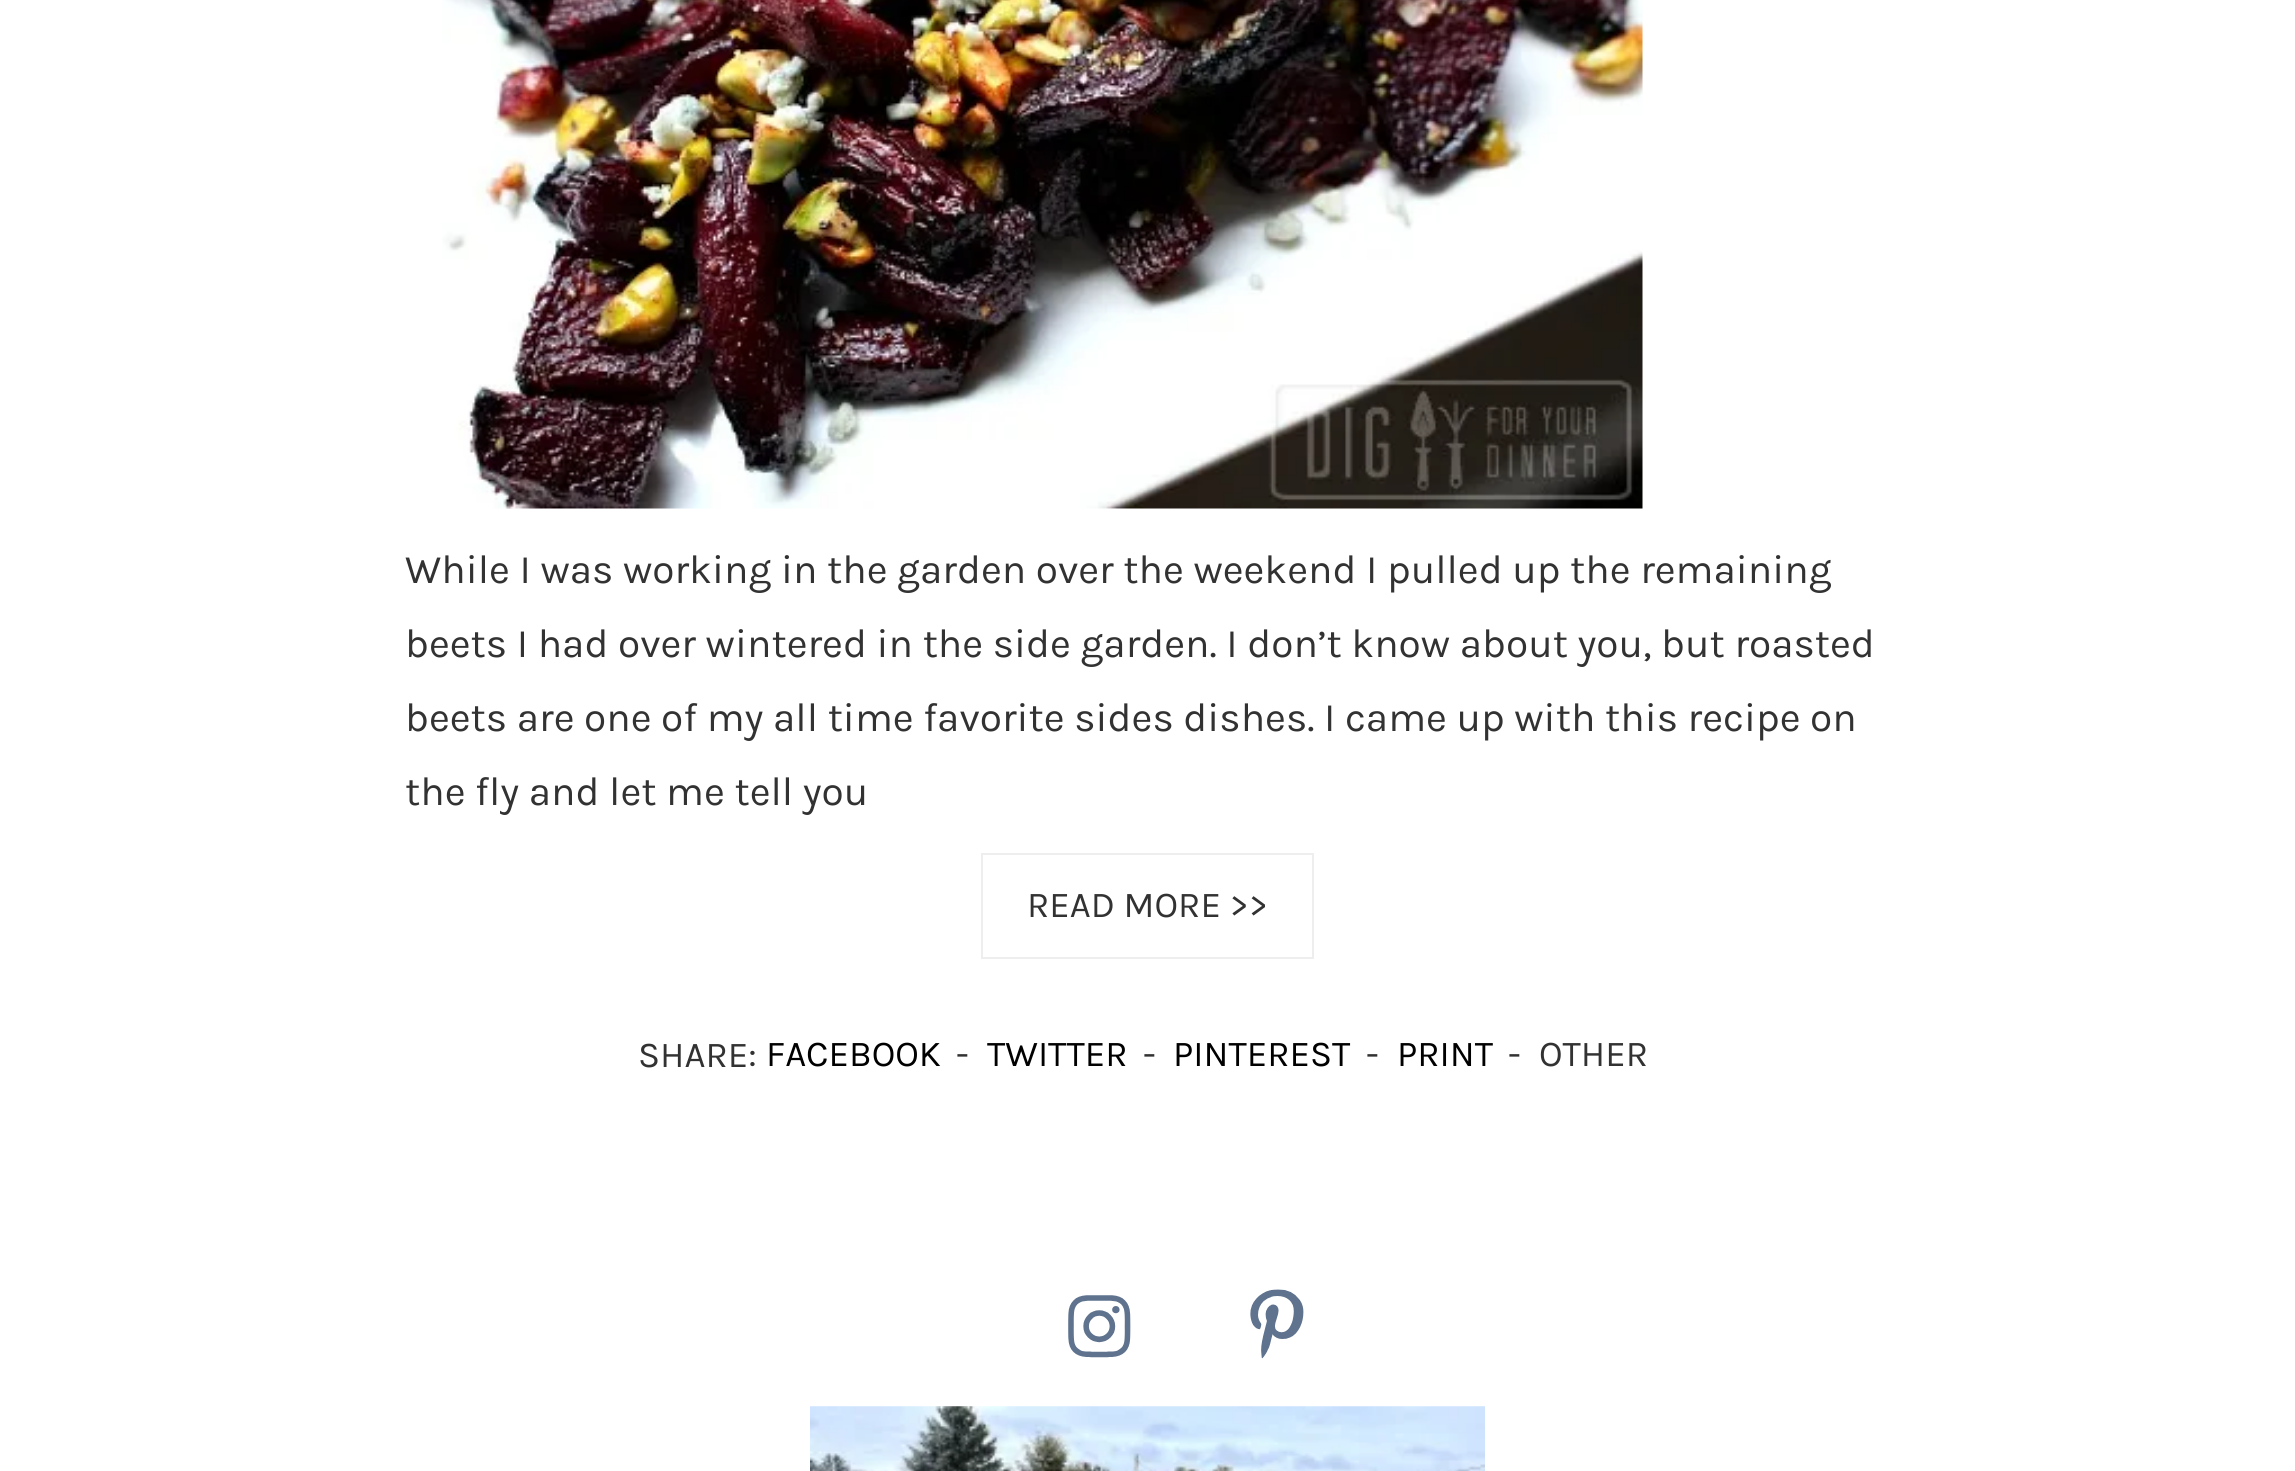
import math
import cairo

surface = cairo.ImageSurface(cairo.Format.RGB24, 2295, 1471)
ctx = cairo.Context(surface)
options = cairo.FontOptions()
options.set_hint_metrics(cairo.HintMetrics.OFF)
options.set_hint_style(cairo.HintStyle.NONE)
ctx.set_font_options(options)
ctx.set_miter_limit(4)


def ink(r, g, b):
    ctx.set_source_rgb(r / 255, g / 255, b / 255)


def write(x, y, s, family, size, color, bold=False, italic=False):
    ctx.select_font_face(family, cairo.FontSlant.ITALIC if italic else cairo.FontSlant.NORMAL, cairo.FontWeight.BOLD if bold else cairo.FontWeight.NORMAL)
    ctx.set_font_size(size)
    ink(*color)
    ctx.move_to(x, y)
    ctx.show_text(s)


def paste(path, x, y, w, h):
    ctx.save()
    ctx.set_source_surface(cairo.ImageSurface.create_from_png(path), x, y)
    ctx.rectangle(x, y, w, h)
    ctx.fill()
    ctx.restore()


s1 = dict(family="Karla", size=40.5, color=(50, 50, 50))
s2 = dict(family="Karla", size=36.5, color=(50, 50, 50))
s3 = dict(family="Karla", size=36.5, color=(0, 0, 0))

ink(255, 255, 255)
ctx.paint()
paste("pic1.png", 442, 0, 1201, 509)
write(405, 583, "While I was working in the garden over the weekend I pulled up the remaining", **s1)
write(405, 657, "beets I had over wintered in the side garden. I don’t know about you, but roasted", **s1)
write(405, 731, "beets are one of my all time favorite sides dishes. I came up with this recipe on", **s1)
write(405, 805, "the fly and let me tell you", **s1)
ctx.rectangle(982, 854, 331, 104)
ink(238, 238, 238)
ctx.stroke()
write(1027, 917, "READ MORE >>", **s2)
write(638, 1067, "SHARE:", **s2)
write(766, 1066, "FACEBOOK", **s3)
write(956, 1066, "-", **s2)
write(987, 1066, "TWITTER", **s3)
write(1143, 1066, "-", **s2)
write(1173, 1066, "PINTEREST", **s3)
write(1366, 1066, "-", **s2)
write(1397, 1066, "PRINT", **s3)
write(1508, 1066, "-", **s2)
write(1539, 1066, "OTHER", **s2)
paste("pic2.png", 1068, 1295, 63, 63)
paste("pic3.png", 1250, 1289, 54, 70)
paste("pic4.png", 810, 1406, 675, 65)
surface.write_to_png("screenshot.png")
